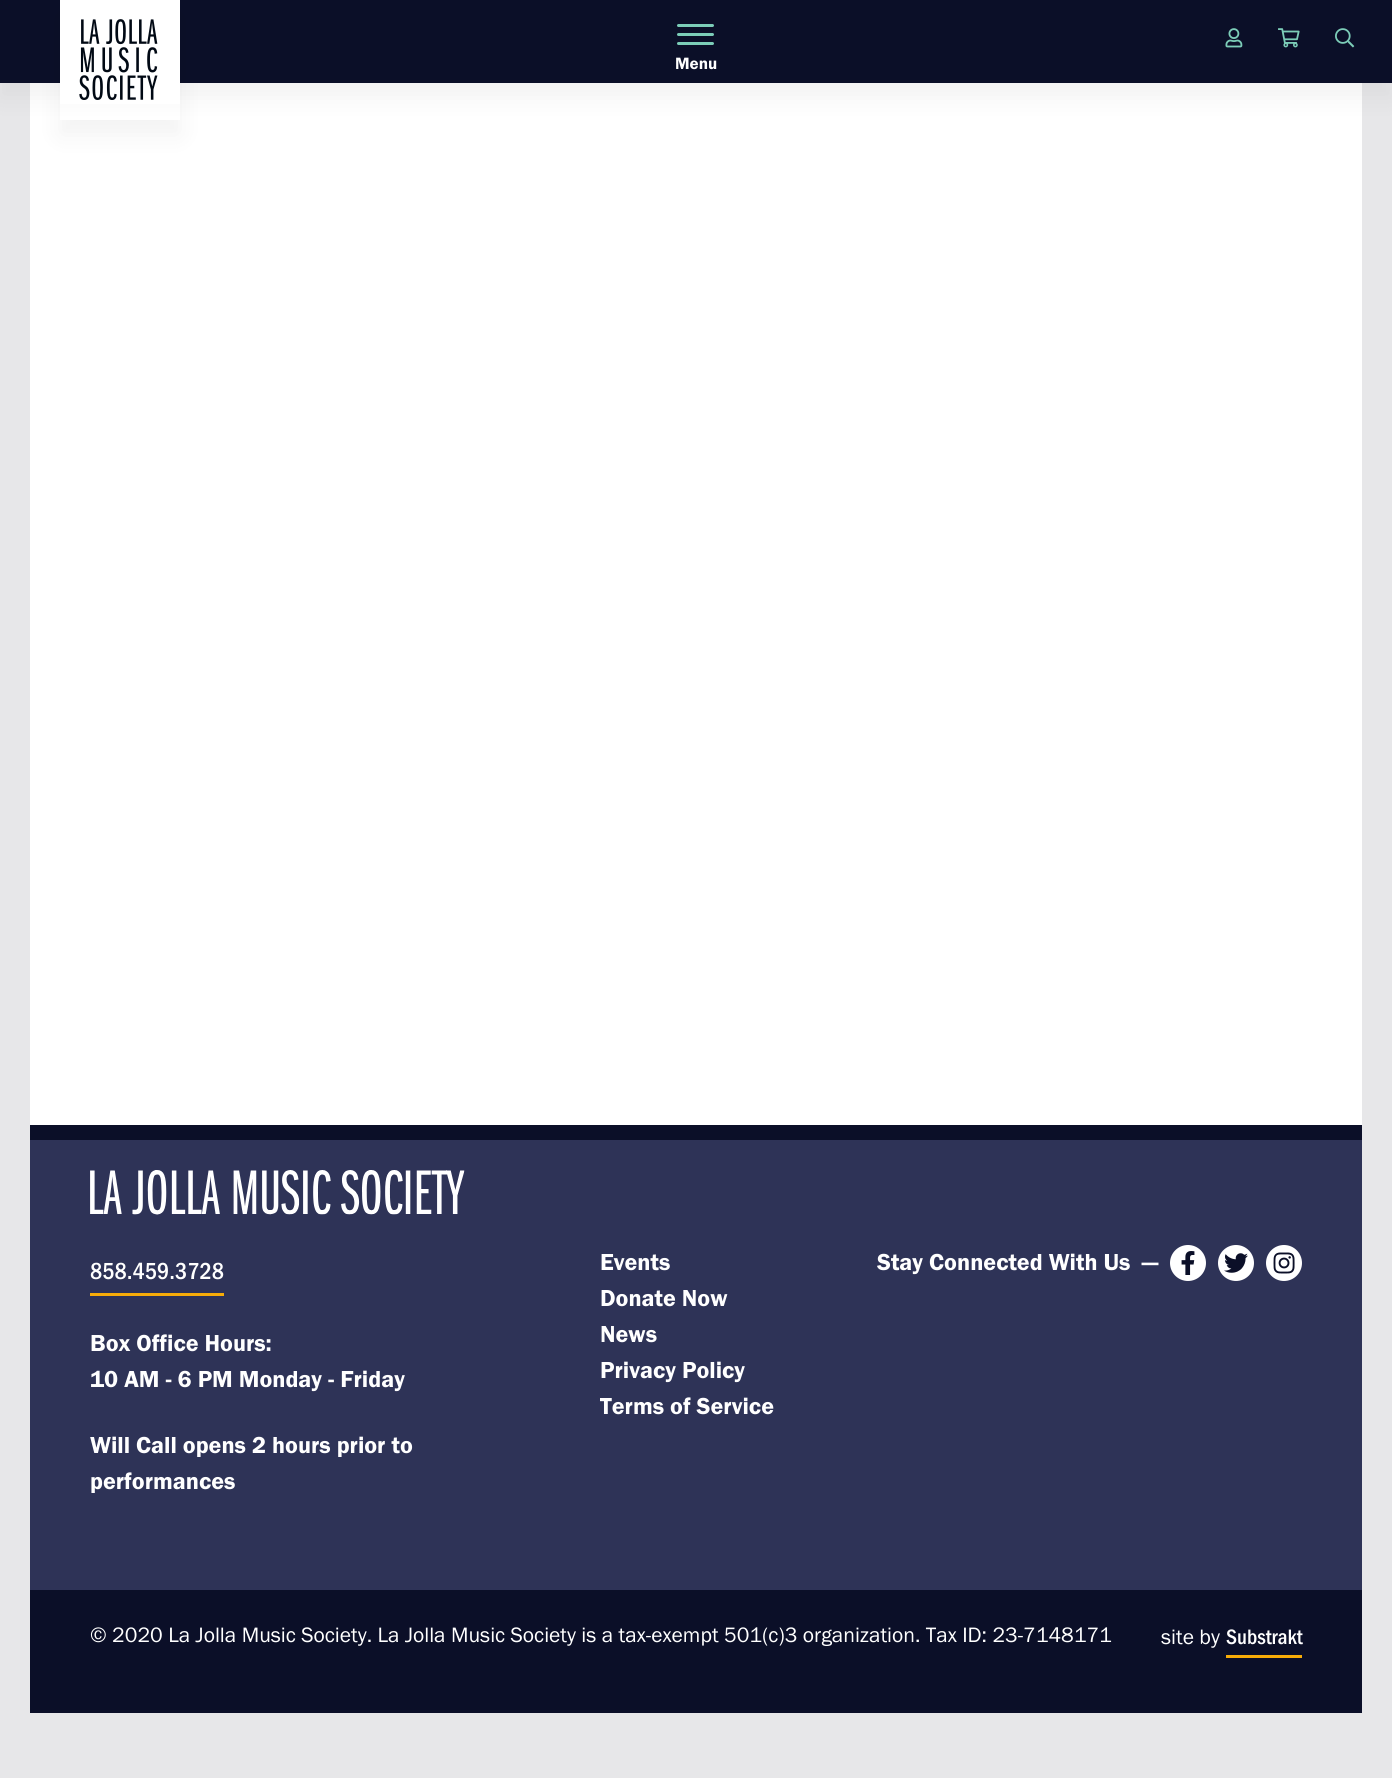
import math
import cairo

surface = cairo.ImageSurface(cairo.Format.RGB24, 1392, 1778)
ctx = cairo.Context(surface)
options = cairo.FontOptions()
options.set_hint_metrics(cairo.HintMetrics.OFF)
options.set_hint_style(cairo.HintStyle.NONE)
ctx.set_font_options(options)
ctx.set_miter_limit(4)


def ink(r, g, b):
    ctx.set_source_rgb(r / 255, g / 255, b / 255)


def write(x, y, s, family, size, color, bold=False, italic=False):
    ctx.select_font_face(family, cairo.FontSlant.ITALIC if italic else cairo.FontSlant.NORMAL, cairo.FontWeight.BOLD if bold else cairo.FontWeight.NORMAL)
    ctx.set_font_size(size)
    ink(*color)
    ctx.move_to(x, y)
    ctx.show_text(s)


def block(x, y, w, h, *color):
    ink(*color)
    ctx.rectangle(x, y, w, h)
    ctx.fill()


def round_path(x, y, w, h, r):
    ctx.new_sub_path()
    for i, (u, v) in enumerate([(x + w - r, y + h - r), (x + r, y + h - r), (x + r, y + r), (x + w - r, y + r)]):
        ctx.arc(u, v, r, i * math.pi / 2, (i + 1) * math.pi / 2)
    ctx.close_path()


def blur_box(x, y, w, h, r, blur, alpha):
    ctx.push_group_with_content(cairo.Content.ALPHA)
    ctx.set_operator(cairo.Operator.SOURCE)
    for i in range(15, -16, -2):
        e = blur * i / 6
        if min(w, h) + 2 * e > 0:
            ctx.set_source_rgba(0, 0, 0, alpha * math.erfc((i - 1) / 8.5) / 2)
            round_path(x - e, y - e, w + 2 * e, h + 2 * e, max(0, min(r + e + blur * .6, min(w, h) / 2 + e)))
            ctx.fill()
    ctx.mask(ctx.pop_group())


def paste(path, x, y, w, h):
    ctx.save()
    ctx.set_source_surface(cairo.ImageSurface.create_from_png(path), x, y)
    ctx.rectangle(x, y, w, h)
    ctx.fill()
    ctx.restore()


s1 = dict(family="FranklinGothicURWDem", size=17, color=(255, 255, 255))
s2 = dict(family="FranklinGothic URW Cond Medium", size=24, color=(255, 255, 255))
s3 = dict(family="FranklinGothicURWDem", size=24, color=(255, 255, 255))
s4 = dict(family="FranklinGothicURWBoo", size=21.6, color=(255, 255, 255))
s5 = dict(family="FranklinGothic URW Cond Medium", size=21.6, color=(255, 255, 255))

ink(231, 231, 233)
ctx.paint()
block(30, 83, 1332, 1042, 255, 255, 255)
ink(0, 0, 0)
blur_box(0, 15, 1392, 83, 0, 12, 0.05)
block(0, 0, 1392, 83, 11, 15, 40)
ctx.save()
ctx.set_fill_rule(cairo.FillRule.EVEN_ODD)
ctx.new_path()
ctx.move_to(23, 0)
ctx.line_to(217, 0)
ctx.line_to(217, 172)
ctx.line_to(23, 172)
ctx.close_path()
ctx.move_to(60, 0)
ctx.line_to(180, 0)
ctx.line_to(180, 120)
ctx.line_to(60, 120)
ctx.close_path()
ctx.clip()
ink(0, 0, 0)
blur_box(60, 15, 120, 120, 0, 12, 0.05)
ctx.restore()
paste("pic1.png", 60, 0, 120, 104)
paste("pic2.png", 1225, 28, 18, 20)
paste("pic3.png", 1278, 28, 22, 20)
paste("pic4.png", 1335, 28, 20, 20)
ink(124, 205, 184)
round_path(677, 33, 37, 3, 1.5)
ctx.fill()
round_path(677, 24, 37, 3, 1.5)
ctx.fill()
round_path(677, 42, 37, 3, 1.5)
ctx.fill()
write(675, 69, "Menu", **s1)
block(30, 1590, 1332, 123, 11, 15, 40)
block(30, 1140, 1332, 450, 46, 51, 87)
block(30, 1125, 1332, 15, 11, 15, 40)
paste("pic5.png", 90, 1170, 375, 45)
block(90, 1293, 134, 3, 247, 172, 8)
write(90, 1279, "858.459.3728", **s2)
write(90, 1351, "Box Office Hours:", **s3)
write(90, 1387, "10 AM - 6 PM Monday - Friday", **s3)
write(90, 1453, "Will Call opens 2 hours prior to", **s3)
write(90, 1489, "performances", **s3)
write(600, 1270, "Events", **s3)
write(600, 1306, "Donate Now", **s3)
write(600, 1342, "News", **s3)
write(600, 1378, "Privacy Policy", **s3)
write(600, 1414, "Terms of Service", **s3)
write(877, 1270, "Stay Connected With Us", **s3)
write(1142, 1270, "—", **s3)
ctx.new_path()
ctx.arc(1188, 1263, 18, 0, 2 * math.pi)
ctx.fill()
paste("pic6.png", 1181, 1251, 14, 24)
ctx.arc(1236, 1263, 18, 0, 2 * math.pi)
ctx.fill()
paste("pic7.png", 1224, 1253, 24, 20)
ctx.arc(1284, 1263, 18, 0, 2 * math.pi)
ctx.fill()
paste("pic8.png", 1273, 1252, 22, 22)
write(90, 1642, "© 2020 La Jolla Music Society. La Jolla Music Society is a tax-exempt 501(c)3 organization. Tax ID: 23-7148171", **s4)
write(1161, 1644, "site by", **s4)
write(1226, 1644, "Substrakt", **s5)
block(1226, 1655, 76, 3, 247, 172, 8)
surface.write_to_png("screenshot.png")
